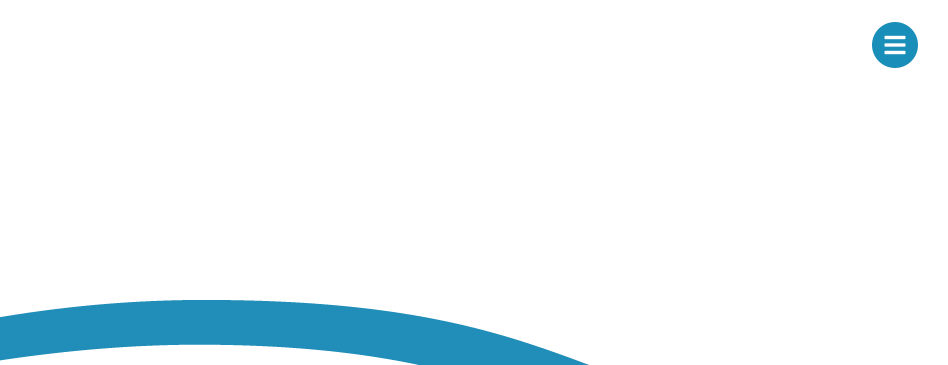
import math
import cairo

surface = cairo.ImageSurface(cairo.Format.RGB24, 948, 365)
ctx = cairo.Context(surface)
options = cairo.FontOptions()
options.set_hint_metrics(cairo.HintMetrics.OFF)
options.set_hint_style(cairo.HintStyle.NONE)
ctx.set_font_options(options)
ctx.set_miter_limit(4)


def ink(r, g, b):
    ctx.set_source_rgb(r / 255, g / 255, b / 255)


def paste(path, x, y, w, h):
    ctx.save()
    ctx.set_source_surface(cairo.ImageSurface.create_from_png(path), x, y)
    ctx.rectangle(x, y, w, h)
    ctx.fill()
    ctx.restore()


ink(255, 255, 255)
ctx.paint()
ink(25, 142, 184)
ctx.arc(895, 45, 23, 0, 2 * math.pi)
ctx.fill()
paste("pic1.png", 884, 35, 22, 20)
paste("pic2.png", 0, 300, 589, 65)
surface.write_to_png("screenshot.png")
